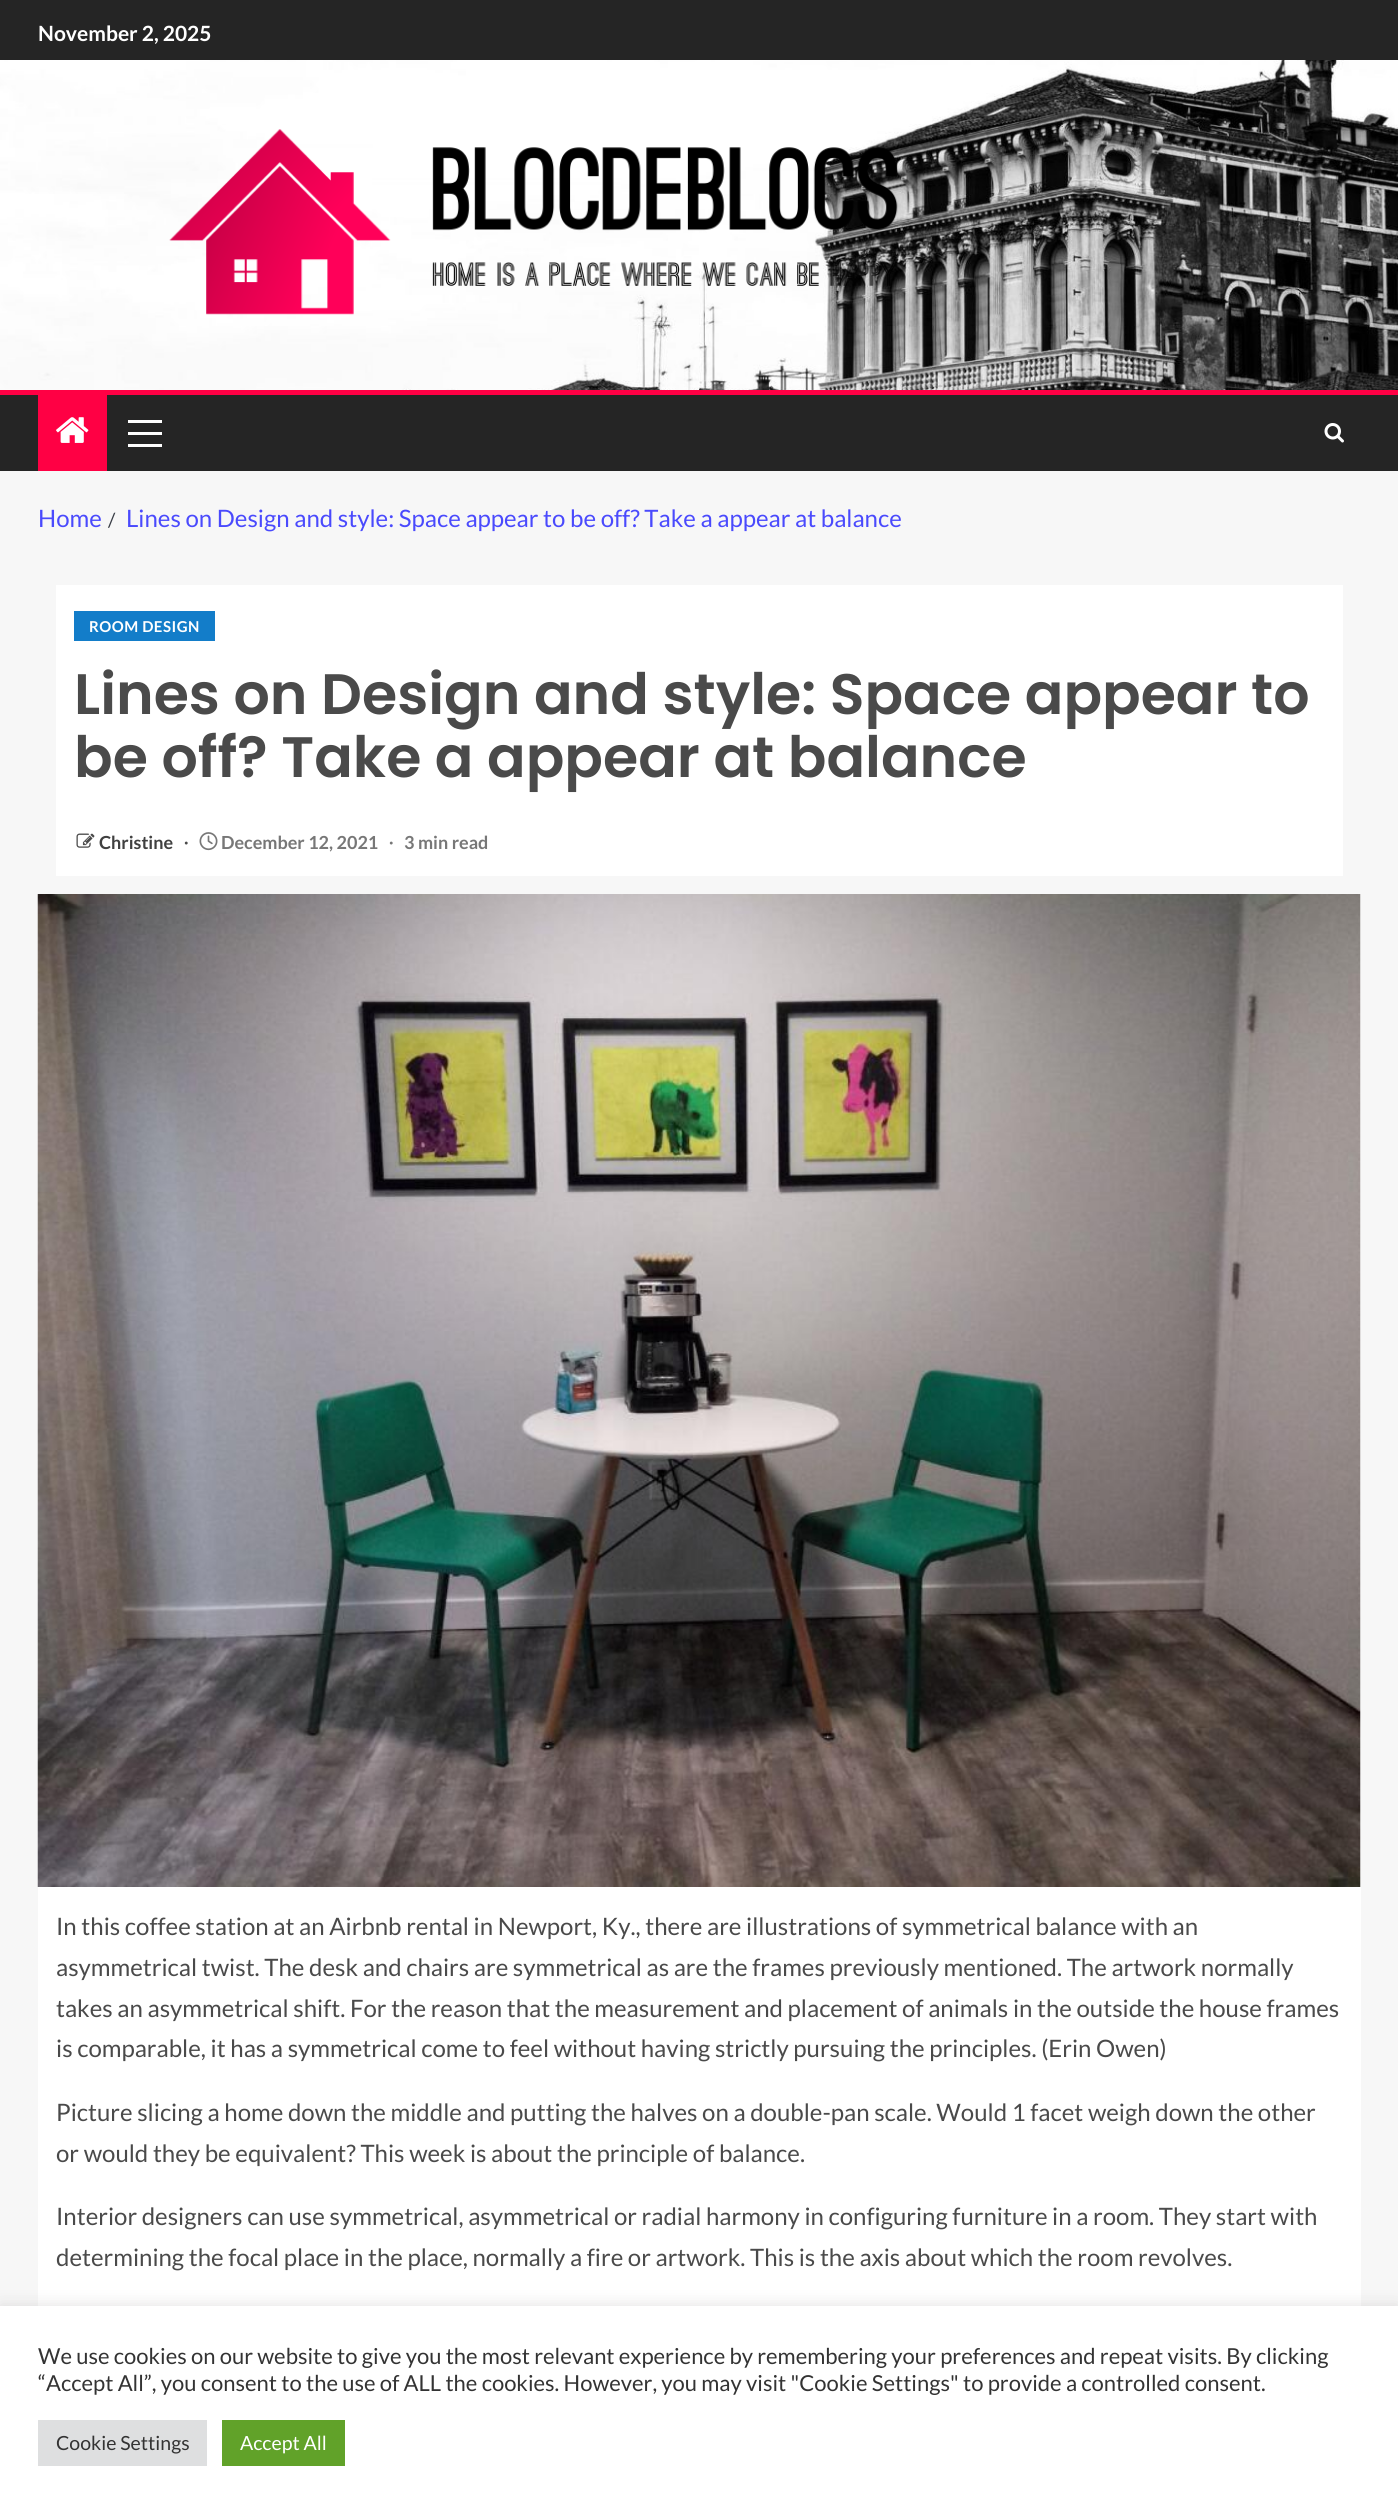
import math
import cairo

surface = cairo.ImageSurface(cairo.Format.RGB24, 1398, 2511)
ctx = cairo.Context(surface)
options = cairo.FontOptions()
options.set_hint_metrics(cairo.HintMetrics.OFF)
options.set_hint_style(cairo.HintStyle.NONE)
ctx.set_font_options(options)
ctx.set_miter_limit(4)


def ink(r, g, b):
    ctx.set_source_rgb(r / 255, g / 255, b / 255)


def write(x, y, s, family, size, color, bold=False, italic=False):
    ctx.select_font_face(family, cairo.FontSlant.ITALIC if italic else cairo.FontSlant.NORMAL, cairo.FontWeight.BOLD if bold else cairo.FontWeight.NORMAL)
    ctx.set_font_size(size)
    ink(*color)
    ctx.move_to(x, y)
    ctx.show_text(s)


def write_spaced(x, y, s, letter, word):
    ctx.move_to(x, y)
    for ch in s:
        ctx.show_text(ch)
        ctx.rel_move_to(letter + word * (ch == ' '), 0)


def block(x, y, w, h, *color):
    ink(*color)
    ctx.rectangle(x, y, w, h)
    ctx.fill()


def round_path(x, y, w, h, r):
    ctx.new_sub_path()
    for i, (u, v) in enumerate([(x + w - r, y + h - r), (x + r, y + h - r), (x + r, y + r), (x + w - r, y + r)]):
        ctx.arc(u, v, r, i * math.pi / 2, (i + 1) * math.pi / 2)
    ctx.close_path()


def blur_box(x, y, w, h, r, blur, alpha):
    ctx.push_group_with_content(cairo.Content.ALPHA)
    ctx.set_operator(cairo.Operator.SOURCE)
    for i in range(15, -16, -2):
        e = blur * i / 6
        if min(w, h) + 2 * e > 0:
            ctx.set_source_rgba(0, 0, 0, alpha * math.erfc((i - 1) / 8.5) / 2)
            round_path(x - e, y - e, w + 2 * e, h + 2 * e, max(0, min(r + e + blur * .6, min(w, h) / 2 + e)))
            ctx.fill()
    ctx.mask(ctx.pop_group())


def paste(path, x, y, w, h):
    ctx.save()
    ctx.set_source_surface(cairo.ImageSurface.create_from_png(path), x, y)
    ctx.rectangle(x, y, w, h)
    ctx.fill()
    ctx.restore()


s1 = dict(family="Lato", size=21, color=(255, 255, 255), bold=True)
s2 = dict(family="Lato", size=24, color=(74, 74, 253))
s3 = dict(family="Lato", size=19.5, color=(57, 62, 70))
s4 = dict(family="Poppins SemiBold", size=57, color=(74, 74, 74))
s5 = dict(family="Lato", size=18, color=(64, 64, 64), bold=True)
s6 = dict(family="Liberation Serif", size=18, color=(74, 74, 74), bold=True)
s7 = dict(family="Lato", size=18, color=(119, 119, 119), bold=True)
s8 = dict(family="Liberation Serif", size=18, color=(119, 119, 119), bold=True)
s9 = dict(family="Lato", size=24, color=(74, 74, 74))
s10 = dict(family="Lato", size=22, color=(51, 51, 51))
s11 = dict(family="Lato", size=19.5, color=(51, 51, 51))
s12 = dict(family="Lato", size=19.5, color=(255, 255, 255))

ink(247, 247, 247)
ctx.paint()
block(0, 0, 1398, 60, 37, 37, 37)
write(38, 41, "November 2, 2025", **s1)
paste("pic1.png", 0, 60, 1398, 330)
paste("pic2.png", 169, 129, 729, 186)
block(0, 395, 1398, 76, 37, 37, 37)
block(0, 390, 1398, 5, 255, 0, 68)
block(38, 395, 69, 76, 255, 0, 68)
paste("pic3.png", 56, 417, 33, 26)
block(128, 432, 34, 3, 255, 255, 255)
block(128, 420, 34, 3, 255, 255, 255)
block(128, 444, 34, 3, 255, 255, 255)
paste("pic4.png", 1324, 423, 20, 20)
write(38, 527, "Home", **s2)
write(108, 527, "/", **s3)
write(126, 527, "Lines on Design and style: Space appear to be off? Take a appear at balance", **s2)
block(56, 585, 1287, 291, 255, 255, 255)
block(74, 611, 141, 30, 19, 125, 201)
ctx.select_font_face("Lato", cairo.FontSlant.NORMAL, cairo.FontWeight.BOLD)
ctx.set_font_size(15)
ink(255, 255, 255)
write_spaced(89, 632, "ROOM DESIGN", 0.5, 0)
write(74, 714, "Lines on Design and style: Space appear to", **s4)
write(74, 777, "be off? Take a appear at balance", **s4)
paste("pic5.png", 76, 833, 19, 15)
write(99, 849, "Christine", **s5)
write(184, 849, "∙", **s6)
paste("pic6.png", 199, 832, 19, 19)
write(221, 849, "December 12, 2021", **s7)
write(389, 849, "∙", **s8)
write(404, 849, "3 min read", **s7)
paste("pic7.png", 37, 894, 1324, 993)
block(38, 1887, 1323, 419, 255, 255, 255)
write(56, 1935, "In this coffee station at an Airbnb rental in Newport, Ky., there are illustrations of symmetrical balance with an", **s9)
write(56, 1976, "asymmetrical twist. The desk and chairs are symmetrical as are the frames previously mentioned. The artwork normally", **s9)
write(56, 2017, "takes an asymmetrical shift. For the reason that the measurement and placement of animals in the outside the house frames", **s9)
write(56, 2057, "is comparable, it has a symmetrical come to feel without having strictly pursuing the principles. (Erin Owen)", **s9)
write(56, 2121, "Picture slicing a home down the middle and putting the halves on a double-pan scale. Would 1 facet weigh down the other", **s9)
write(56, 2162, "or would they be equivalent? This week is about the principle of balance.", **s9)
write(56, 2225, "Interior designers can use symmetrical, asymmetrical or radial harmony in configuring furniture in a room. They start with", **s9)
write(56, 2266, "determining the focal place in the place, normally a fire or artwork. This is the axis about which the room revolves.", **s9)
ink(172, 171, 171)
blur_box(0, 2304, 1398, 206, 0, 7.5, 0.3)
block(0, 2306, 1398, 205, 255, 255, 255)
write(38, 2364, "We use cookies on our website to give you the most relevant experience by remembering your preferences and repeat visits. By clicking", **s10)
write(38, 2391, "“Accept All”, you consent to the use of ALL the cookies. However, you may visit \"Cookie Settings\" to provide a controlled consent.", **s10)
block(38, 2420, 169, 46, 222, 223, 224)
write(56, 2450, "Cookie Settings", **s11)
block(222, 2420, 123, 46, 97, 162, 41)
write(240, 2450, "Accept All", **s12)
surface.write_to_png("screenshot.png")
